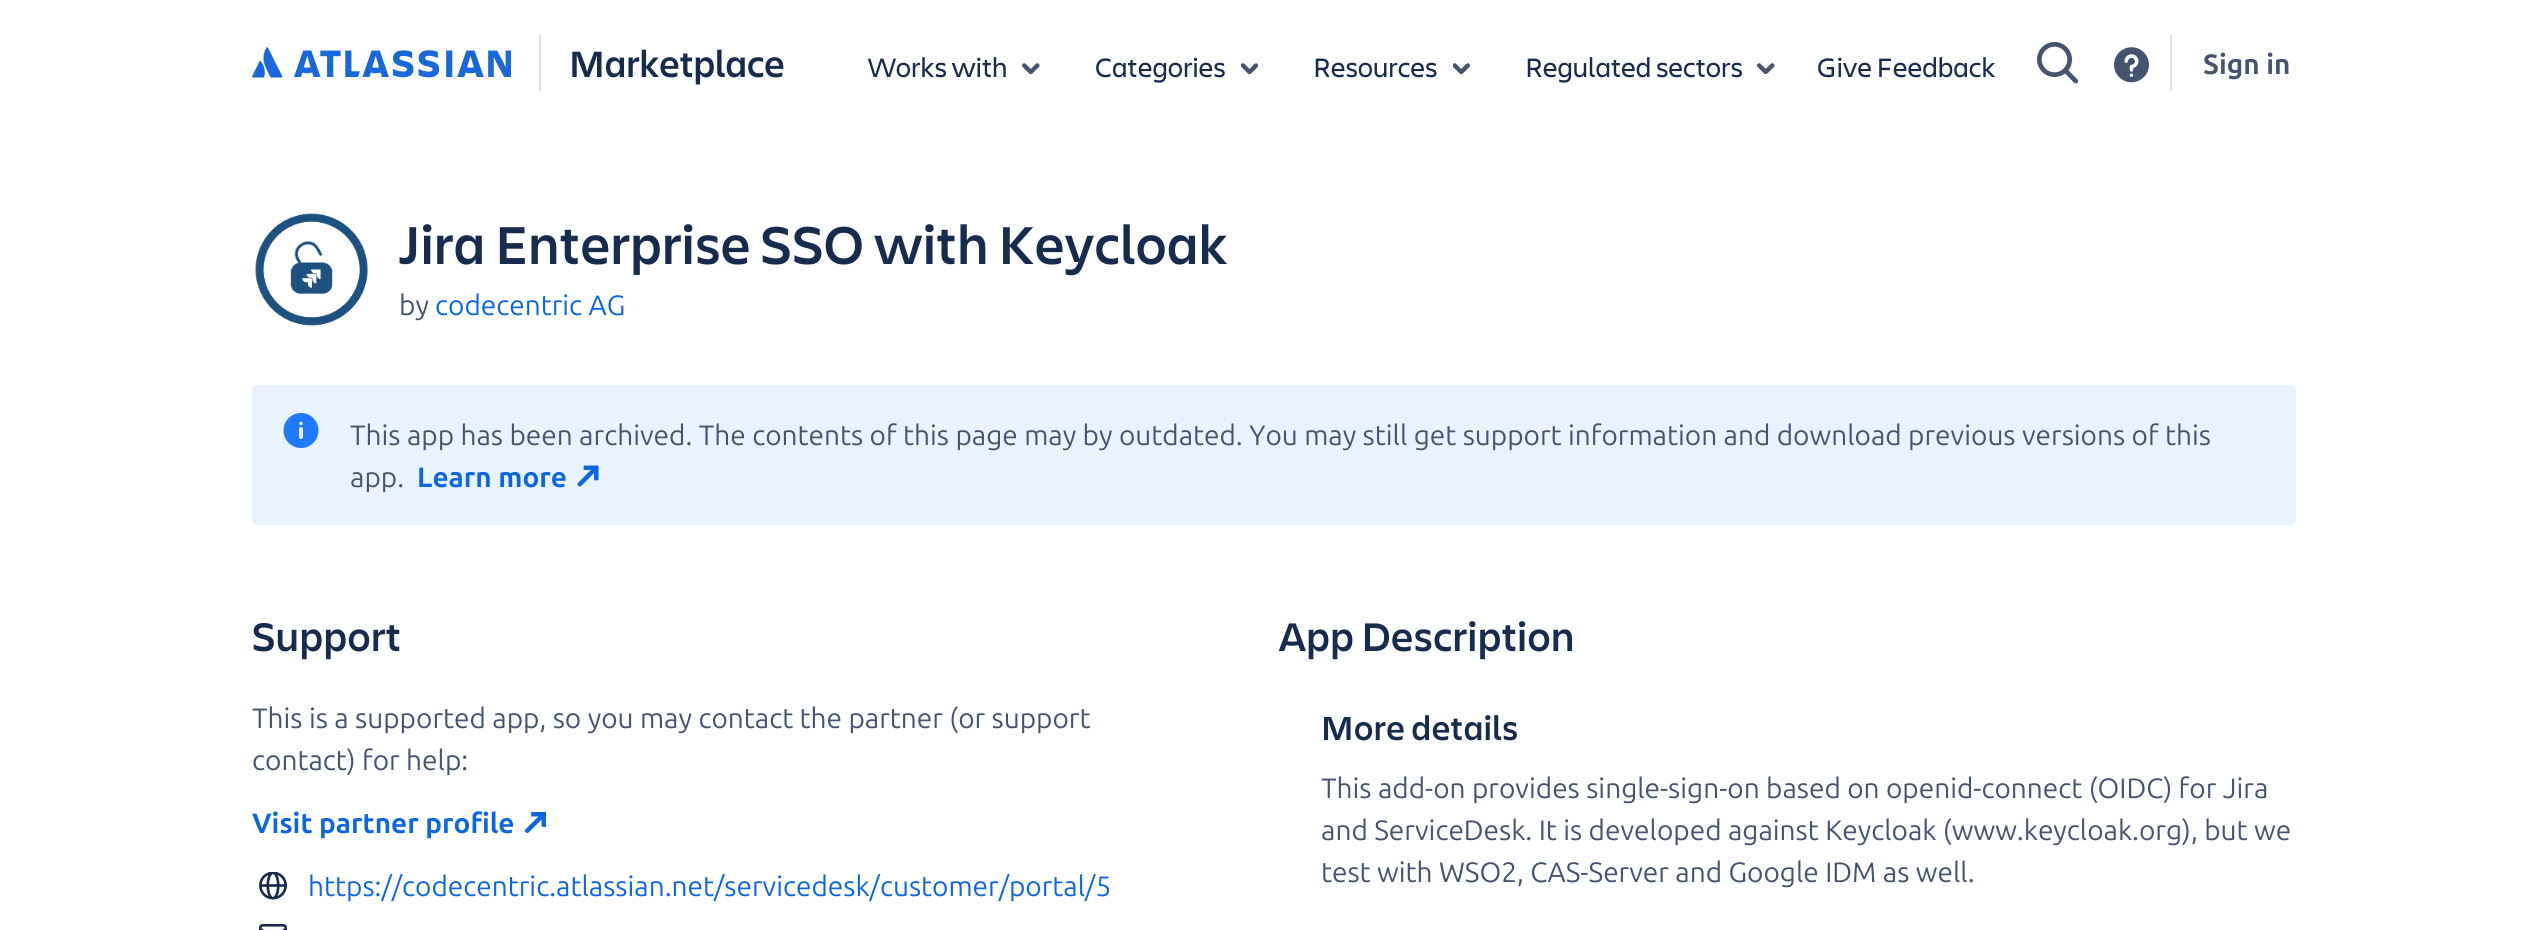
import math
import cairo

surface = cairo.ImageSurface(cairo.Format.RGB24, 2548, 930)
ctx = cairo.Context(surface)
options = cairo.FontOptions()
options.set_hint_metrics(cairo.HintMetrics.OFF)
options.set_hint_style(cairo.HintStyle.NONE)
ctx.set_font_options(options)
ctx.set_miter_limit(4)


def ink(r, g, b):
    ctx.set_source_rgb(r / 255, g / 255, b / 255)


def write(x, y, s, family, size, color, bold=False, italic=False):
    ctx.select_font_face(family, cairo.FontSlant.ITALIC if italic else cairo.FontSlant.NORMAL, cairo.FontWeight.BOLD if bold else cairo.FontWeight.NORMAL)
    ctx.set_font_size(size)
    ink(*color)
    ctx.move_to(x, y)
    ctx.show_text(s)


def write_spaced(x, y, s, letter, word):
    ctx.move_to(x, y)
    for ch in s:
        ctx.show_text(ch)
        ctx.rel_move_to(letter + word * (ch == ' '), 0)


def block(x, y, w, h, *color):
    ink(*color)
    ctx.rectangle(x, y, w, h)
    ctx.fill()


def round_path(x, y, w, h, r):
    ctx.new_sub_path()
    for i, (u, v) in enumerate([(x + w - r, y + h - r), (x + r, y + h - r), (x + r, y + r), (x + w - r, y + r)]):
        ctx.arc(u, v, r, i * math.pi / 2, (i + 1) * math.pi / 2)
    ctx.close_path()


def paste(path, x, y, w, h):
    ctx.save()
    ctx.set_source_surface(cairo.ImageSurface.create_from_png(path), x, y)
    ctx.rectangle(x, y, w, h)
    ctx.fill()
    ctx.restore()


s1 = dict(family="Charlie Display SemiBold", size=38.5, color=(23, 43, 77))
s2 = dict(family="Charlie Display", size=28, color=(23, 43, 77))
s3 = dict(family="Ubuntu", size=28, color=(68, 84, 111), bold=True)
s4 = dict(family="Ubuntu", size=28, color=(68, 84, 111))
s5 = dict(family="Ubuntu", size=28, color=(12, 102, 228))
s6 = dict(family="Ubuntu", size=28, color=(12, 102, 228), bold=True)

ink(255, 255, 255)
ctx.paint()
paste("pic1.png", 252, 47, 259, 31)
block(539, 35, 2, 56, 221, 224, 229)
write(569, 77, "Marketplace", **s1)
write(868, 77, "Works with", **s2)
paste("pic2.png", 1022, 63, 18, 12)
write(1095, 77, "Categories", **s2)
paste("pic3.png", 1241, 63, 17, 12)
write(1313, 77, "Resources", **s2)
paste("pic4.png", 1453, 63, 17, 12)
write(1525, 77, "Regulated sectors", **s2)
paste("pic2.png", 1757, 63, 18, 12)
write(1817, 77, "Give Feedback", **s2)
paste("pic5.png", 2037, 42, 42, 42)
paste("pic6.png", 2114, 47, 35, 36)
block(2170, 35, 2, 56, 221, 224, 229)
write(2203, 74, "Sign in", **s3)
paste("pic7.png", 255, 213, 113, 113)
ctx.select_font_face("Charlie Display SemiBold")
ctx.set_font_size(56)
ink(23, 43, 77)
write_spaced(399, 264, "Jira Enterprise SSO with Keycloak", 0.5, 0)
write(399, 315, "by", **s4)
write(435, 315, "codecentric AG", **s5)
ink(233, 242, 255)
round_path(252, 385, 2044, 140, 5)
ctx.fill()
paste("pic8.png", 283, 413, 36, 35)
write(350, 445, "This app has been archived. The contents of this page may by outdated. You may still get support information and download previous versions of this", **s4)
write(350, 487, "app.", **s4)
write(417, 487, "Learn more", **s6)
paste("pic9.png", 577, 465, 22, 22)
ctx.select_font_face("Charlie Display SemiBold")
ctx.set_font_size(42)
ink(23, 43, 77)
write_spaced(252, 651, "Support", 0.5, 0)
write(252, 728, "This is a supported app, so you may contact the partner (or support", **s4)
write(252, 770, "contact) for help:", **s4)
write(252, 833, "Visit partner profile", **s6)
paste("pic10.png", 525, 812, 21, 21)
paste("pic11.png", 259, 872, 28, 28)
write(308, 896, "https://codecentric.atlassian.net/servicedesk/customer/portal/5", **s5)
paste("pic12.png", 259, 924, 28, 6)
ctx.select_font_face("Charlie Display SemiBold")
ctx.set_font_size(42)
ink(23, 43, 77)
write_spaced(1279, 651, "App Description", 0.5, 0)
ctx.set_font_size(35)
write_spaced(1321, 740, "More details", 0.5, 0)
write(1321, 798, "This add-on provides single-sign-on based on openid-connect (OIDC) for Jira", **s4)
write(1321, 840, "and ServiceDesk. It is developed against Keycloak (www.keycloak.org), but we", **s4)
write(1321, 882, "test with WSO2, CAS-Server and Google IDM as well.", **s4)
surface.write_to_png("screenshot.png")
